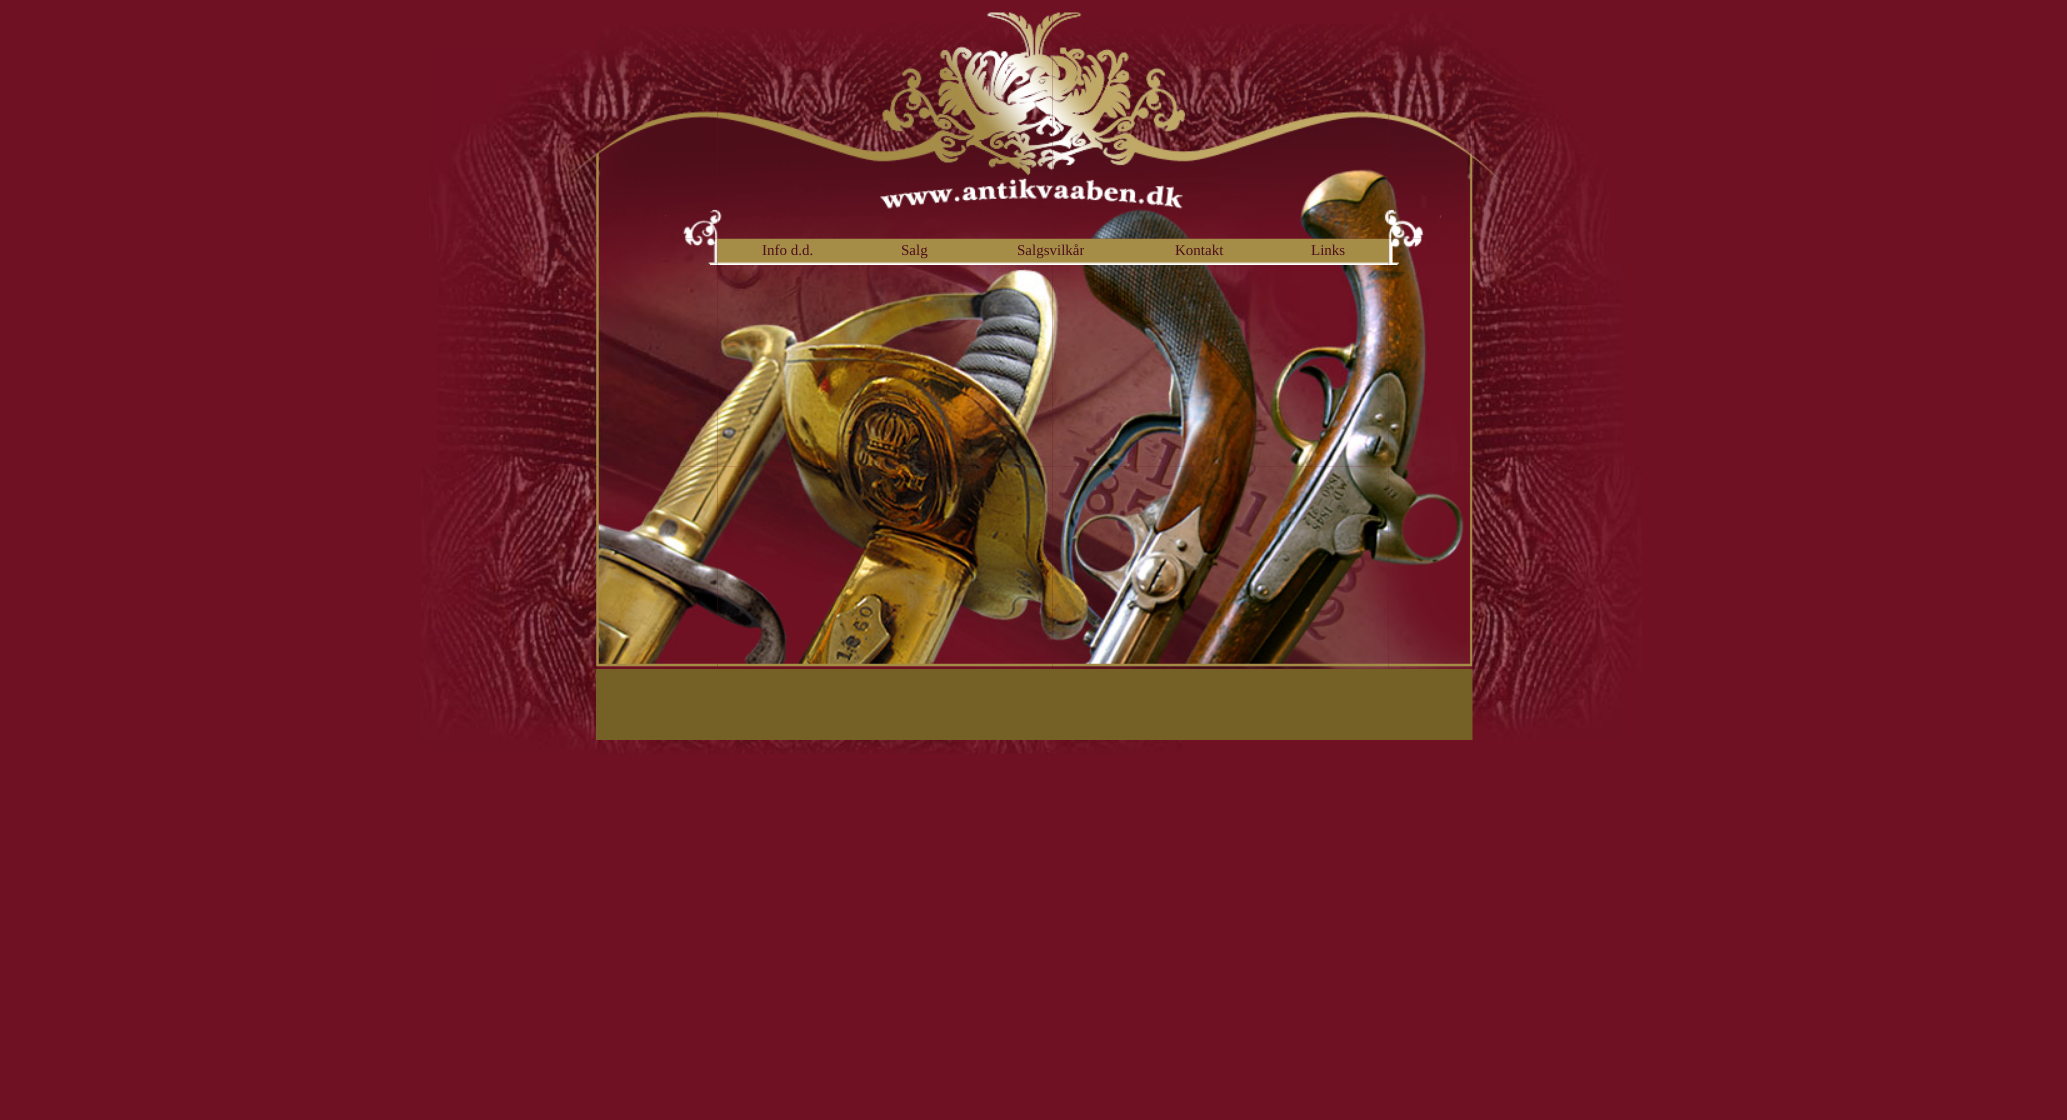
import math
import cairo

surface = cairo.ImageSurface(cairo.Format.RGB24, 2067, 1120)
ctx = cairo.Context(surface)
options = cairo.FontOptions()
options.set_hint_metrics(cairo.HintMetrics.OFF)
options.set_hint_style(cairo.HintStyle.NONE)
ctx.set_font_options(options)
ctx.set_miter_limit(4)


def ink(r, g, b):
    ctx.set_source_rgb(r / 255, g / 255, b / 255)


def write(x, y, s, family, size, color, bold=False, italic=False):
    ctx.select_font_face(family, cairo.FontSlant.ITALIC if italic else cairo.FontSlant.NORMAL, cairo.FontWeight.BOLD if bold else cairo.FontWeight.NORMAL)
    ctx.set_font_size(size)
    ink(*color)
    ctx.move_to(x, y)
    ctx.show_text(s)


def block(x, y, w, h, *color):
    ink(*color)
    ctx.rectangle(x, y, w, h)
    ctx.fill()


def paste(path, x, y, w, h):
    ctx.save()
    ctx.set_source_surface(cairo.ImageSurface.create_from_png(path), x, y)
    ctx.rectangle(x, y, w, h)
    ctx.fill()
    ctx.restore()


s1 = dict(family="Liberation Serif", size=15, color=(77, 14, 26))

ink(111, 17, 35)
ctx.paint()
paste("pic1.png", 429, 50, 168, 189)
paste("pic2.png", 596, 26, 122, 213)
paste("pic3.png", 717, 28, 168, 211)
paste("pic4.png", 885, 12, 168, 227)
paste("pic5.png", 1052, 12, 168, 227)
paste("pic6.png", 1220, 24, 169, 215)
paste("pic7.png", 1388, 13, 85, 226)
paste("pic8.png", 1472, 49, 137, 190)
paste("pic9.png", 436, 238, 282, 27)
paste("pic10.png", 717, 238, 672, 27)
write(762, 255, "Info d.d.", **s1)
write(901, 255, "Salg", **s1)
write(1017, 255, "Salgsvilkår", **s1)
write(1175, 255, "Kontakt", **s1)
write(1311, 255, "Links", **s1)
paste("pic11.png", 1388, 238, 216, 27)
paste("pic12.png", 437, 265, 160, 202)
paste("pic13.png", 596, 265, 122, 202)
paste("pic14.png", 717, 265, 168, 202)
paste("pic15.png", 885, 265, 168, 202)
paste("pic16.png", 1052, 265, 168, 202)
paste("pic17.png", 1220, 265, 169, 202)
paste("pic18.png", 1388, 265, 85, 202)
paste("pic19.png", 1472, 265, 152, 202)
paste("pic20.png", 421, 466, 176, 203)
paste("pic21.png", 596, 466, 122, 203)
paste("pic22.png", 717, 466, 168, 201)
paste("pic23.png", 885, 466, 168, 203)
paste("pic24.png", 1052, 466, 168, 203)
paste("pic25.png", 1220, 466, 169, 203)
paste("pic26.png", 1388, 466, 85, 203)
paste("pic27.png", 1472, 466, 170, 203)
paste("pic28.png", 419, 668, 178, 82)
block(596, 669, 877, 71, 117, 96, 37)
paste("pic29.png", 596, 740, 586, 14)
paste("pic30.png", 1472, 668, 149, 72)
surface.write_to_png("screenshot.png")
